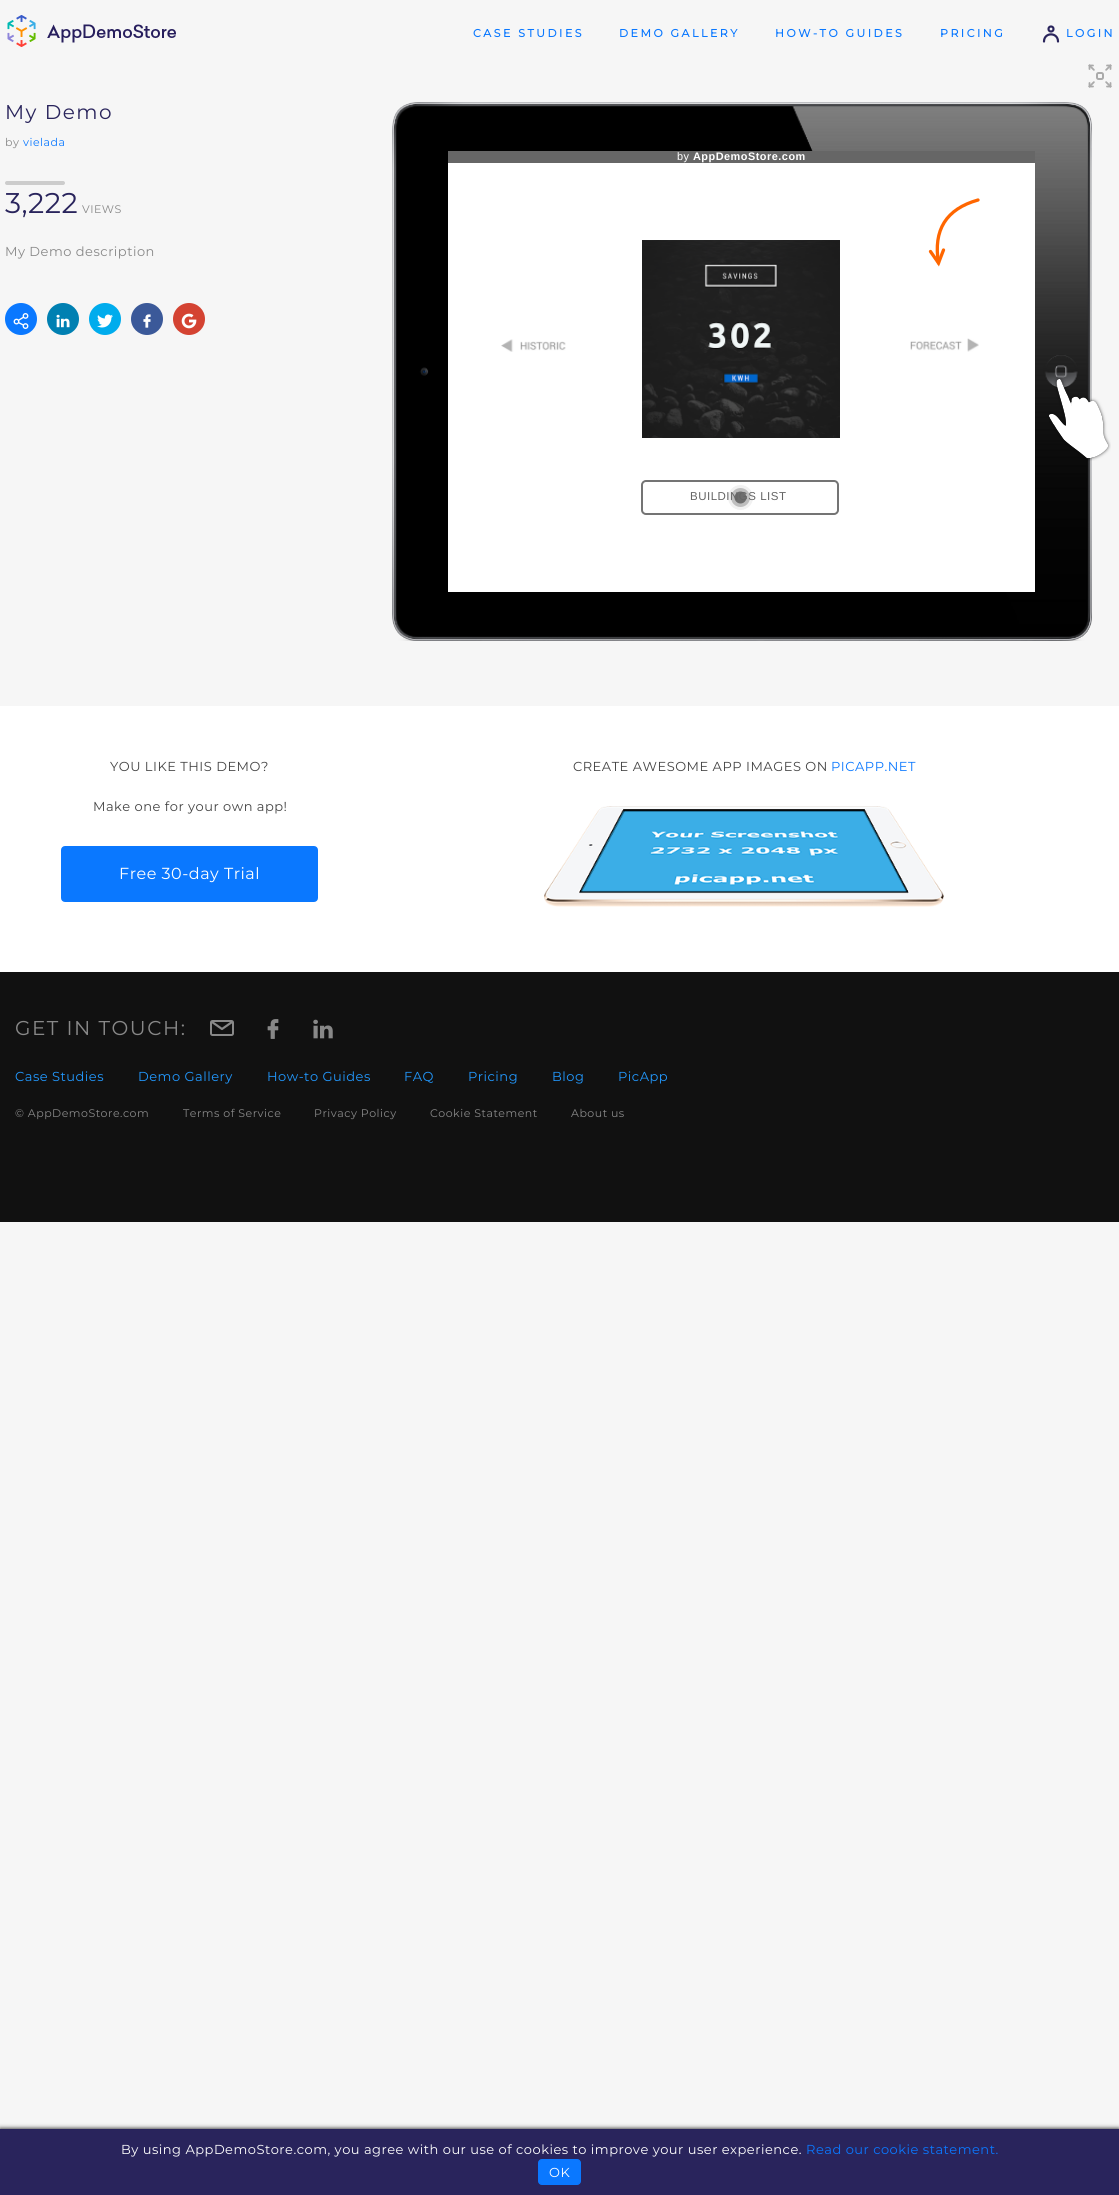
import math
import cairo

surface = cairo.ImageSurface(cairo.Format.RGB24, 1119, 2195)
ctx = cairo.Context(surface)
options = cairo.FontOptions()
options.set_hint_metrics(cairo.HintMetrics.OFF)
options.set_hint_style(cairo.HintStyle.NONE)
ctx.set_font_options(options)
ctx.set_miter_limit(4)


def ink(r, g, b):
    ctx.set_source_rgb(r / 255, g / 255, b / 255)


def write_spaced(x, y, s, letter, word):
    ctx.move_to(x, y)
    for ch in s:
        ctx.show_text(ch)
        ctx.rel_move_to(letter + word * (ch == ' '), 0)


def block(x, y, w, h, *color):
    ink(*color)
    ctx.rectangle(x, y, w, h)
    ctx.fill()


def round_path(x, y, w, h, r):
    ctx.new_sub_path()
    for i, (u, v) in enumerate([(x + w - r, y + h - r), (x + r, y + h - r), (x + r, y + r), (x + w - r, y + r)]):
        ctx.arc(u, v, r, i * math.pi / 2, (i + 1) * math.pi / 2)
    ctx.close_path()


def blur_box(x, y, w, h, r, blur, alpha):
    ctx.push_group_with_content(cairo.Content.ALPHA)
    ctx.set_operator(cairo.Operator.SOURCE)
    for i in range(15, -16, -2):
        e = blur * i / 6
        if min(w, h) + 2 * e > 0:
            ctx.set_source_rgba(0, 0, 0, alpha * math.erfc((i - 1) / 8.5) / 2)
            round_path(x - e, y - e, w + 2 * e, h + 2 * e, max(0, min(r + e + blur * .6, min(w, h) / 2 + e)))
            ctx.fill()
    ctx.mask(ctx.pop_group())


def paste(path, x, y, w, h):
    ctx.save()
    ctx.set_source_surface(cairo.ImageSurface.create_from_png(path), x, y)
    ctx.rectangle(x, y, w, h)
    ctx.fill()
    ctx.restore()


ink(246, 246, 246)
ctx.paint()
paste("pic1.png", 7, 15, 169, 32)
ctx.select_font_face("Montserrat", cairo.FontSlant.NORMAL, cairo.FontWeight.BOLD)
ctx.set_font_size(11)
ink(10, 120, 255)
write_spaced(473, 37, "CASE STUDIES", 2.5, 0)
write_spaced(619, 37, "DEMO GALLERY", 2.5, 0)
write_spaced(775, 37, "HOW-TO GUIDES", 2.5, 0)
write_spaced(940, 37, "PRICING", 2.5, 0)
write_spaced(1066, 37, "LOGIN", 2.5, 0)
ctx.new_path()
ctx.move_to(1044, 41.5)
ctx.curve_to(1044, 32, 1058, 32, 1058, 41.5)
ink(41, 36, 92)
ctx.set_line_width(2.2)
ctx.set_line_cap(cairo.LineCap.ROUND)
ctx.stroke()
ctx.arc(1051, 29, 2.5, 0, 2 * math.pi)
ctx.set_line_cap(cairo.LineCap.BUTT)
ctx.stroke()
ctx.select_font_face("Montserrat Thin")
ctx.set_font_size(20)
write_spaced(5, 119, "My Demo", 1.5, 0)
ctx.set_font_size(11)
ink(136, 136, 136)
write_spaced(5, 146, "by", 0.5, 0)
ink(10, 120, 255)
write_spaced(23, 146, "vielada", 0.5, 0)
ctx.new_path()
ctx.move_to(7, 183)
ctx.line_to(63, 183)
ink(204, 204, 204)
ctx.set_line_width(4)
ctx.set_line_cap(cairo.LineCap.ROUND)
ctx.stroke()
ctx.set_font_size(28.5)
ink(41, 36, 92)
write_spaced(5, 213, "3,222", 0.5, 0)
ctx.set_font_size(11)
ink(136, 136, 136)
write_spaced(82, 213, "VIEWS", 0.5, 0)
ctx.set_font_size(13)
write_spaced(5, 256, "My Demo description", 0.5, 0)
ink(10, 120, 255)
ctx.new_path()
ctx.arc(21, 319, 16, 0, 2 * math.pi)
ctx.fill()
paste("pic2.png", 13, 313, 16, 16)
ink(0, 128, 178)
ctx.arc(63, 319, 16, 0, 2 * math.pi)
ctx.fill()
paste("pic3.png", 56, 314, 14, 14)
ink(0, 172, 237)
ctx.arc(105, 319, 16, 0, 2 * math.pi)
ctx.fill()
paste("pic4.png", 97, 314, 16, 14)
ink(59, 89, 153)
ctx.arc(147, 319, 16, 0, 2 * math.pi)
ctx.fill()
paste("pic5.png", 143, 314, 8, 14)
ink(212, 67, 50)
ctx.arc(189, 319, 16, 0, 2 * math.pi)
ctx.fill()
paste("pic6.png", 181, 313, 16, 16)
paste("pic7.png", 1088, 64, 24, 24)
paste("pic8.png", 392, 102, 700, 539)
block(448, 151, 587, 12, 102, 102, 102)
ctx.select_font_face("Liberation Sans")
ctx.set_font_size(10.9)
ink(255, 255, 255)
write_spaced(677, 160, "by", 0.5, 0)
ctx.select_font_face("Liberation Sans", cairo.FontSlant.NORMAL, cairo.FontWeight.BOLD)
write_spaced(693, 160, "AppDemoStore.com", 0.5, 0)
block(448, 163, 587, 429, 255, 255, 255)
ctx.new_path()
ctx.move_to(938.5, 263)
ctx.curve_to(933, 230, 946, 209, 978, 200)
ink(255, 102, 0)
ctx.set_line_width(3.3)
ctx.stroke()
ctx.new_path()
ctx.move_to(943.5, 250)
ctx.line_to(938.5, 263)
ctx.line_to(930.5, 251.5)
ctx.stroke()
paste("pic9.png", 501, 339, 65, 13)
paste("pic10.png", 642, 240, 198, 198)
paste("pic11.png", 910, 338, 69, 14)
ctx.select_font_face("Liberation Sans")
ctx.set_font_size(11.5)
ink(101, 101, 101)
write_spaced(690, 500, "BUILDINGS LIST", 0.5, 0)
ctx.set_source_rgba(0.396, 0.396, 0.396, 0.9)
ctx.new_path()
ctx.arc(740.5, 497.5, 6, 0, 2 * math.pi)
ctx.fill()
ctx.set_source_rgba(0.396, 0.396, 0.396, 0.36)
ctx.arc(740.5, 497.5, 9.5, 0, 2 * math.pi)
ctx.fill()
ctx.set_source_rgba(0.396, 0.396, 0.396, 0.09)
ctx.arc(740.5, 497.5, 12.5, 0, 2 * math.pi)
ctx.fill()
round_path(642, 481, 196, 33, 4)
ink(116, 116, 116)
ctx.set_line_width(2)
ctx.set_line_cap(cairo.LineCap.BUTT)
ctx.stroke()
paste("pic12.png", 1049, 377, 62, 84)
block(0, 706, 1119, 266, 255, 255, 255)
ctx.select_font_face("Montserrat Thin")
ctx.set_font_size(13)
ink(68, 68, 68)
write_spaced(110, 771, "YOU LIKE THIS DEMO?", 0.5, 0)
write_spaced(93, 811, "Make one for your own app!", 0.5, 0)
ink(10, 120, 255)
round_path(62, 847, 255, 54, 3)
ctx.fill_preserve()
ctx.stroke()
ctx.set_font_size(16)
ink(255, 255, 255)
write_spaced(119, 879, "Free 30-day Trial", 0.5, 0)
ctx.set_font_size(13)
ink(68, 68, 68)
write_spaced(573, 771, "CREATE AWESOME APP IMAGES ON", 0.5, 0)
ink(10, 120, 255)
write_spaced(831, 771, "PICAPP.NET", 0.5, 0)
paste("pic13.png", 544, 806, 400, 101)
block(0, 972, 1119, 250, 17, 17, 17)
ctx.set_font_size(20)
ink(136, 136, 136)
write_spaced(15, 1035, "GET IN TOUCH:", 1.5, 0)
round_path(211, 1021, 22, 14, 1.5)
ctx.stroke()
ctx.new_path()
ctx.move_to(212, 1022)
ctx.line_to(222, 1029)
ctx.line_to(232, 1022)
ctx.set_line_width(2.2)
ctx.set_line_cap(cairo.LineCap.ROUND)
ctx.set_line_join(cairo.LineJoin.ROUND)
ctx.stroke()
paste("pic14.png", 267, 1019, 12, 20)
paste("pic15.png", 313, 1019, 20, 20)
ctx.set_font_size(13)
ink(34, 153, 255)
write_spaced(15, 1081, "Case Studies", 0.5, 0)
write_spaced(138, 1081, "Demo Gallery", 0.5, 0)
write_spaced(267, 1081, "How-to Guides", 0.5, 0)
write_spaced(404, 1081, "FAQ", 0.5, 0)
write_spaced(468, 1081, "Pricing", 0.5, 0)
write_spaced(552, 1081, "Blog", 0.5, 0)
write_spaced(618, 1081, "PicApp", 0.5, 0)
ctx.set_font_size(11)
ink(136, 136, 136)
write_spaced(15, 1117, "© AppDemoStore.com", 0.5, 0)
write_spaced(183, 1117, "Terms of Service", 0.5, 0)
write_spaced(314, 1117, "Privacy Policy", 0.5, 0)
write_spaced(430, 1117, "Cookie Statement", 0.5, 0)
write_spaced(571, 1117, "About us", 0.5, 0)
ink(0, 0, 0)
blur_box(0, 2129, 1119, 66, 0, 2.5, 1)
block(0, 2129, 1119, 66, 41, 36, 92)
ctx.set_font_size(13)
ink(255, 255, 255)
write_spaced(121, 2154, "By using AppDemoStore.com, you agree with our use of cookies to improve your user experience.", 0.5, 0)
ink(10, 120, 255)
write_spaced(806, 2154, "Read our cookie statement.", 0.5, 0)
round_path(538.5, 2159.5, 42, 25, 3.5)
ctx.fill_preserve()
ctx.set_line_width(1)
ctx.set_line_cap(cairo.LineCap.BUTT)
ctx.set_line_join(cairo.LineJoin.MITER)
ctx.stroke()
ink(255, 255, 255)
write_spaced(549, 2177, "OK", 0.5, 0)
surface.write_to_png("screenshot.png")
